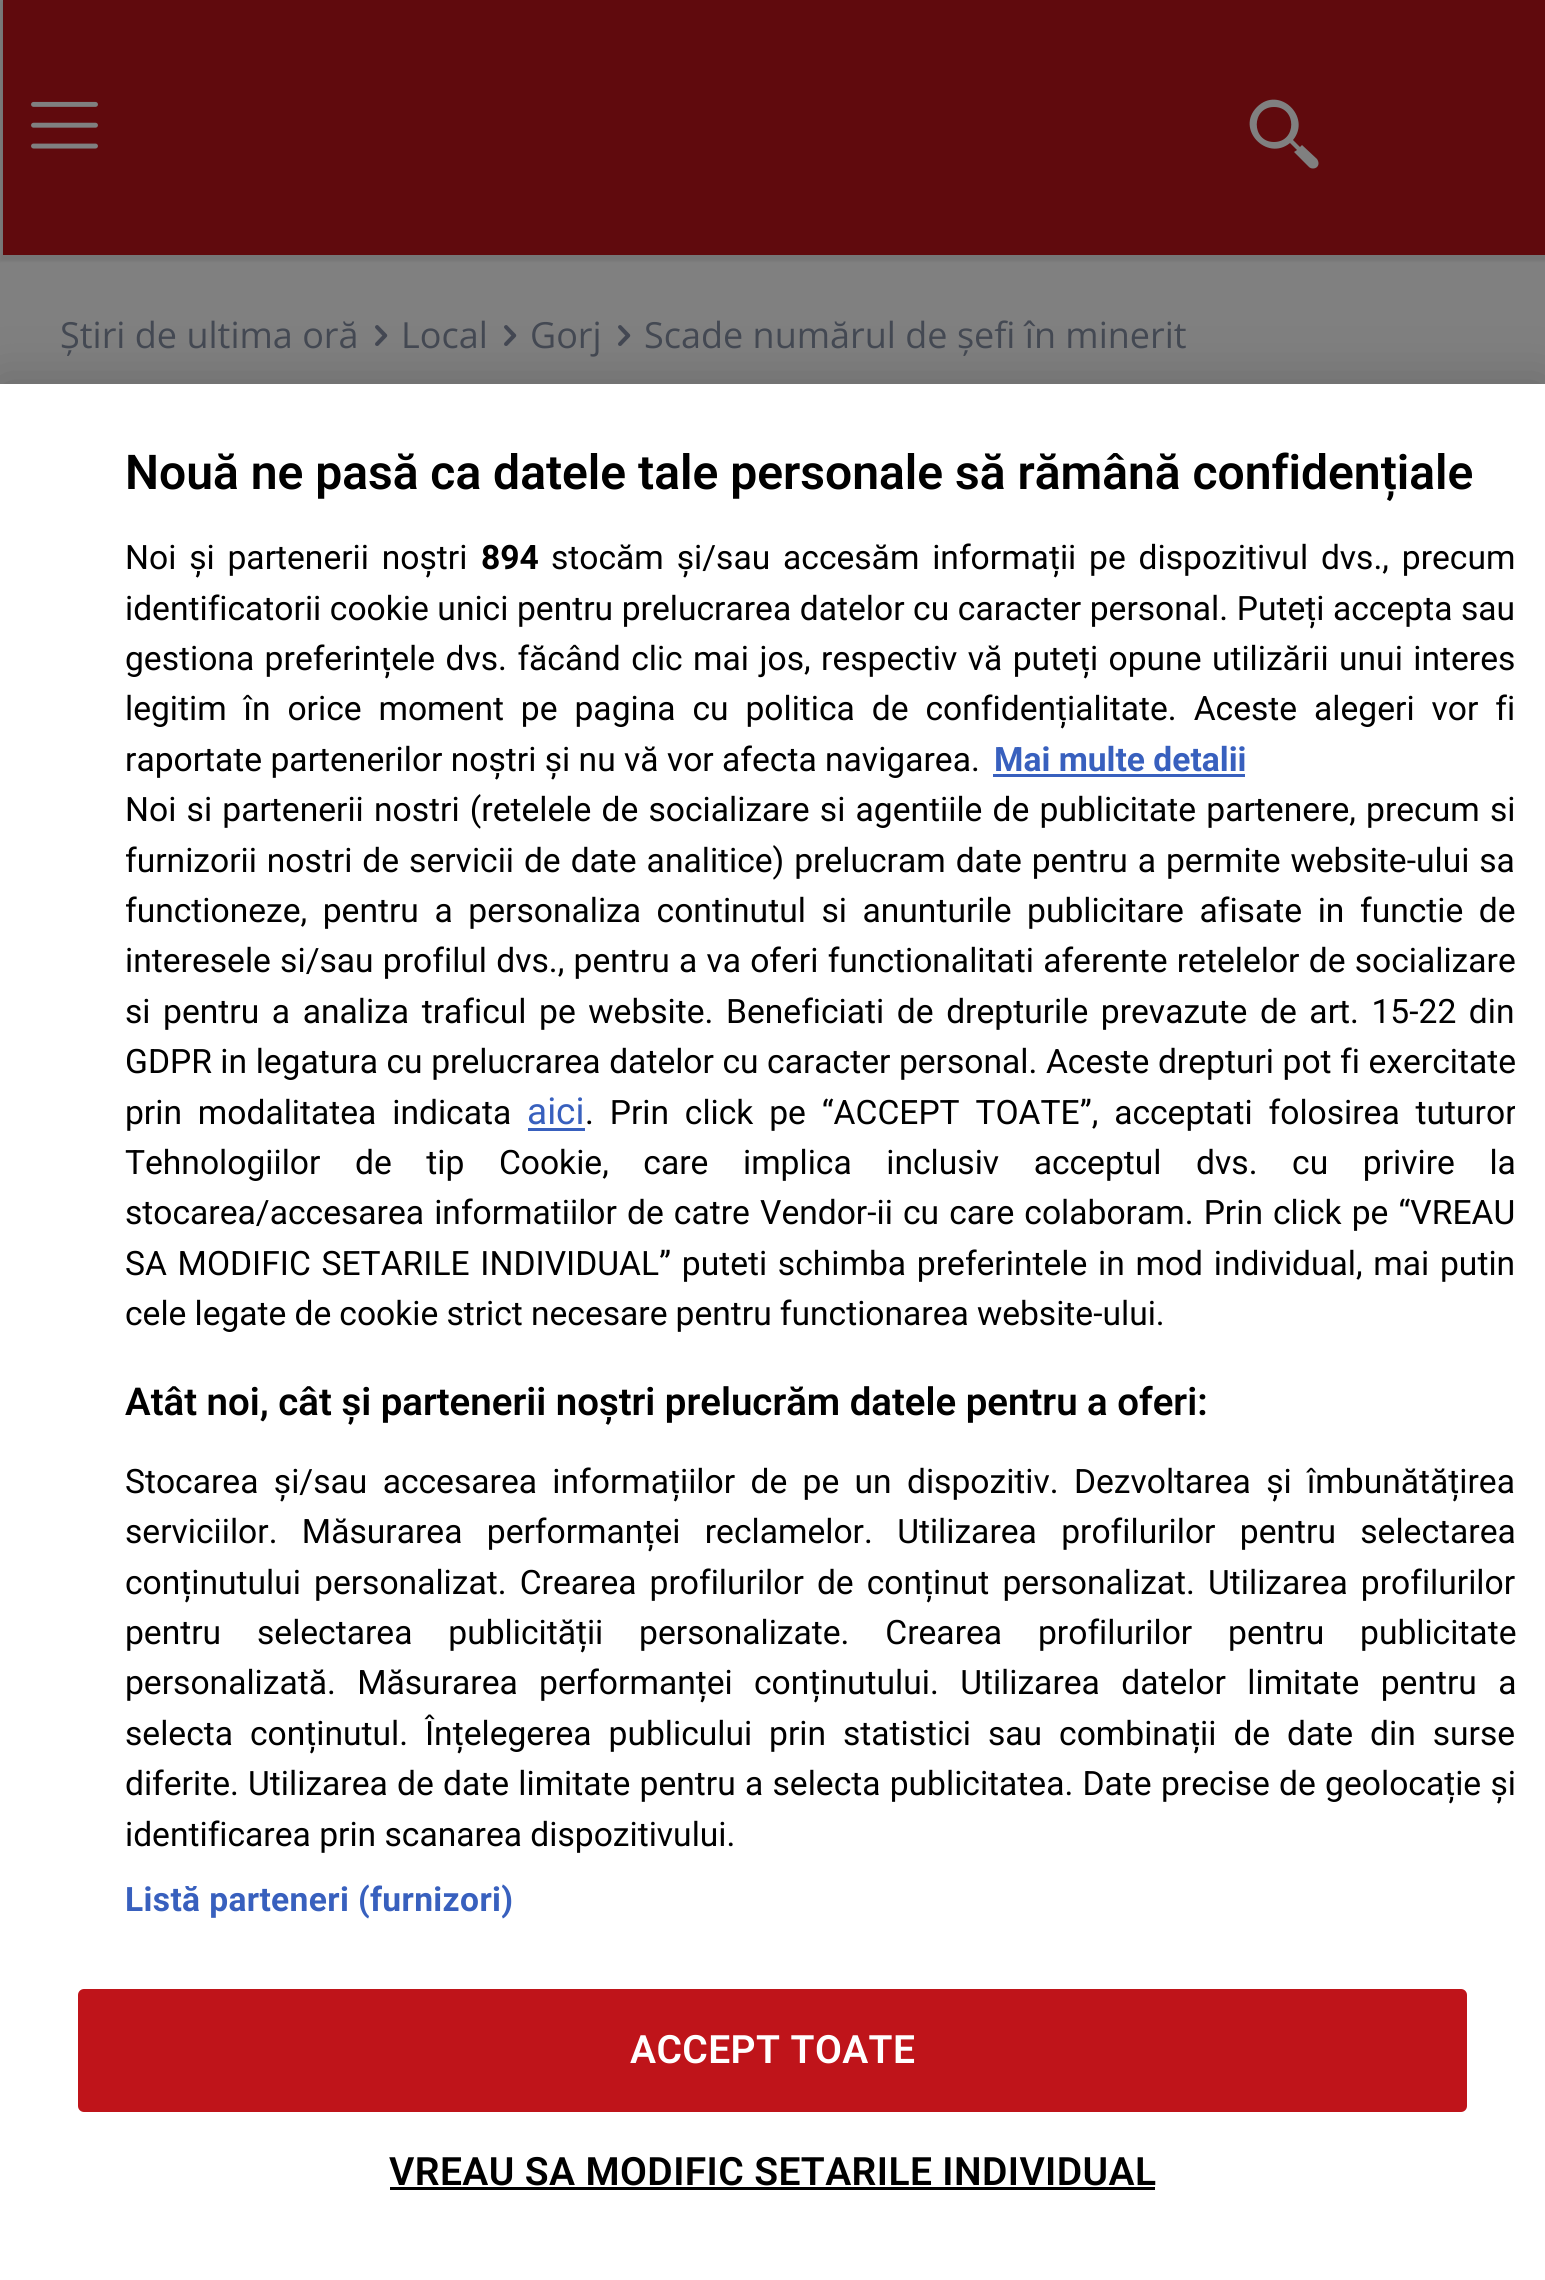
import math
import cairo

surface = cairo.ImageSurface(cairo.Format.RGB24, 1545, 2280)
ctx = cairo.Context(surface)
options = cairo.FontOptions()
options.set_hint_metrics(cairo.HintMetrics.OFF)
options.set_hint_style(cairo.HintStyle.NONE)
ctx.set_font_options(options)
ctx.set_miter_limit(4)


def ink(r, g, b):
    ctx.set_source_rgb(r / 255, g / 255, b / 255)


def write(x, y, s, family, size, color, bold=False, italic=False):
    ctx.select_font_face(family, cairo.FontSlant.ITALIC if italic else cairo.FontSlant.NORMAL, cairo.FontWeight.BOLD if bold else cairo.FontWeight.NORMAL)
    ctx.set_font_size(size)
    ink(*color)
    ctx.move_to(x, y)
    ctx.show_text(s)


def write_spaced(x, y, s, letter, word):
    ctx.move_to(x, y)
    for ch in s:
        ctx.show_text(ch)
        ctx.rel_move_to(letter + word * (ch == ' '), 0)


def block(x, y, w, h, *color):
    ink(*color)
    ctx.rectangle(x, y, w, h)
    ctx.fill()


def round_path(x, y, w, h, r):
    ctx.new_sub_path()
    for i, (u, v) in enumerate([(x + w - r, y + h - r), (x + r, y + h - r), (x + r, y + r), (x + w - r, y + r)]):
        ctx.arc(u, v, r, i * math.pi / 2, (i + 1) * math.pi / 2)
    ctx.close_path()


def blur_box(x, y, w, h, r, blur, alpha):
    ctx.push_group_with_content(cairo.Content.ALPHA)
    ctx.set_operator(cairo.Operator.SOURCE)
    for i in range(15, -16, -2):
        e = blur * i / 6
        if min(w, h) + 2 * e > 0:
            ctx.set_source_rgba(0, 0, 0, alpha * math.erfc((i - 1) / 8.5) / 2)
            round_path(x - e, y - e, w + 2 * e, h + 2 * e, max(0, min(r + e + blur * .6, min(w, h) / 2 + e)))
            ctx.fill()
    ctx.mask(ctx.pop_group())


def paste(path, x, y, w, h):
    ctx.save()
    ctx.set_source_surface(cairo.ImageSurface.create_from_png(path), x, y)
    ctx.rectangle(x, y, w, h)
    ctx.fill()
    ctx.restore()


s1 = dict(family="Open Sans", size=36, color=(68, 73, 83))
s2 = dict(family="Roboto SemiBold", size=48, color=(0, 0, 0))
s3 = dict(family="Roboto", size=33.6, color=(0, 0, 0), bold=True)
s4 = dict(family="Roboto", size=33.6, color=(0, 0, 0))
s5 = dict(family="Roboto", size=33.6, color=(56, 96, 190), bold=True)
s6 = dict(family="Roboto", size=37, color=(56, 96, 190))
s7 = dict(family="Roboto SemiBold", size=38.4, color=(0, 0, 0))

ink(128, 128, 128)
ctx.paint()
block(3, 0, 1542, 255, 96, 10, 13)
paste("pic1.png", 31, 101, 67, 48)
ink(128, 128, 128)
ctx.new_path()
ctx.move_to(1317, 159)
ctx.line_to(1302, 145)
ctx.line_to(1300, 147)
ctx.line_to(1293, 140)
ctx.curve_to(1312, 117, 1279, 85, 1257, 107)
ctx.curve_to(1235, 129, 1267, 162, 1290, 143)
ctx.line_to(1297, 150)
ctx.line_to(1294, 152)
ctx.line_to(1309, 167)
ctx.curve_to(1311, 169, 1315, 169, 1317, 167)
ctx.curve_to(1319, 165, 1319, 162, 1317, 159)
ctx.close_path()
ctx.move_to(1274, 142)
ctx.curve_to(1251, 142, 1251, 107, 1274, 107)
ctx.curve_to(1297, 107, 1297, 142, 1274, 142)
ctx.close_path()
ctx.fill()
ctx.save()
ctx.set_fill_rule(cairo.FillRule.EVEN_ODD)
ctx.new_path()
ctx.move_to(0, 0)
ctx.line_to(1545, 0)
ctx.line_to(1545, 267)
ctx.line_to(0, 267)
ctx.close_path()
ctx.move_to(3, 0)
ctx.line_to(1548, 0)
ctx.line_to(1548, 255)
ctx.line_to(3, 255)
ctx.close_path()
ctx.clip()
ink(0, 0, 0)
blur_box(0, 0, 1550, 261, 0, 1.5, 0.08)
ctx.restore()
write(60, 348, "Știri de ultima oră", **s1)
paste("pic2.png", 375, 325, 13, 21)
write(401, 348, "Local", **s1)
paste("pic2.png", 504, 325, 13, 21)
write(530, 348, "Gorj", **s1)
paste("pic2.png", 618, 325, 13, 21)
write(644, 348, "Scade numărul de șefi în minerit", **s1)
ink(0, 0, 0)
blur_box(0, 384, 1545, 1896, 0, 27, 0.2)
block(0, 384, 1545, 1896, 255, 255, 255)
write(125, 489, "Nouă ne pasă ca datele tale personale să rămână confidențiale", **s2)
ctx.select_font_face("Roboto")
ctx.set_font_size(33.6)
write_spaced(125, 569, "Noi și partenerii noștri", 0, 4.5)
write(481, 569, "894", **s3)
ctx.select_font_face("Roboto")
write_spaced(551, 569, "stocăm și/sau accesăm informații pe dispozitivul dvs., precum", 0, 4.5)
write_spaced(125, 620, "identificatorii cookie unici pentru prelucrarea datelor cu caracter personal. Puteți accepta sau", 0, 0.25)
write_spaced(125, 670, "gestiona preferințele dvs. făcând clic mai jos, respectiv vă puteți opune utilizării unui interes", 0, 2.1)
write_spaced(125, 720, "legitim în orice moment pe pagina cu politica de confidențialitate. Aceste alegeri vor fi", 0, 8.6)
write(125, 771, "raportate partenerilor noștri și nu vă vor afecta navigarea.", **s4)
write(994, 771, "Mai multe detalii", **s5)
block(993, 774, 252, 3, 56, 96, 190)
ctx.select_font_face("Roboto")
ink(0, 0, 0)
write_spaced(125, 821, "Noi si partenerii nostri (retelele de socializare si agentiile de publicitate partenere, precum si", 0, 1.9)
write_spaced(125, 872, "furnizorii nostri de servicii de date analitice) prelucram date pentru a permite website-ului sa", 0, 1.6)
write_spaced(125, 922, "functioneze, pentru a personaliza continutul si anunturile publicitare afisate in functie de", 0, 7.25)
write_spaced(125, 972, "interesele si/sau profilul dvs., pentru a va oferi functionalitati aferente retelelor de socializare", 0, 0.9)
write_spaced(125, 1023, "si pentru a analiza traficul pe website. Beneficiati de drepturile prevazute de art. 15-22 din", 0, 4.25)
write_spaced(125, 1073, "GDPR in legatura cu prelucrarea datelor cu caracter personal. Aceste drepturi pot fi exercitate", 0, 0.2)
write_spaced(125, 1124, "prin modalitatea indicata", 0, 7.5)
write(527, 1124, "aici", **s6)
block(528, 1128, 57, 3, 56, 96, 190)
ctx.save()
ctx.rectangle(126, 444, 1389, 1515)
ctx.clip()
ctx.set_font_size(33.6)
ink(0, 0, 0)
write_spaced(585, 1124, ". Prin click pe “ACCEPT TOATE”, acceptati folosirea tuturor", 0, 7.5)
ctx.restore()
ctx.set_font_size(33.6)
ink(0, 0, 0)
write_spaced(125, 1174, "Tehnologiilor de tip Cookie, care implica inclusiv acceptul dvs. cu privire la", 0, 26.25)
write_spaced(125, 1224, "stocarea/accesarea informatiilor de catre Vendor-ii cu care colaboram. Prin click pe “VREAU", 0, 1.75)
write_spaced(125, 1275, "SA MODIFIC SETARILE INDIVIDUAL” puteti schimba preferintele in mod individual, mai putin", 0, 2.4)
write_spaced(125, 1325, "cele legate de cookie strict necesare pentru functionarea website-ului.", 0, -0.25)
write(125, 1415, "Atât noi, cât și partenerii noștri prelucrăm datele pentru a oferi:", **s7)
ctx.select_font_face("Roboto")
ctx.set_font_size(33.6)
write_spaced(125, 1493, "Stocarea și/sau accesarea informațiilor de pe un dispozitiv. Dezvoltarea și îmbunătățirea", 0, 7)
write_spaced(125, 1543, "serviciilor. Măsurarea performanței reclamelor. Utilizarea profilurilor pentru selectarea", 0, 16)
ctx.save()
ctx.rectangle(126, 444, 1389, 1515)
ctx.clip()
write_spaced(125, 1594, "conținutului personalizat. Crearea profilurilor de conținut personalizat. Utilizarea profilurilor", 0, 4.75)
ctx.restore()
write_spaced(125, 1644, "pentru selectarea publicității personalizate. Crearea profilurilor pentru publicitate", 0, 27.5)
write_spaced(125, 1694, "personalizată. Măsurarea performanței conținutului. Utilizarea datelor limitate pentru a", 0, 13)
write_spaced(125, 1745, "selecta conținutul. Înțelegerea publicului prin statistici sau combinații de date din surse", 0, 8.6)
write_spaced(125, 1795, "diferite. Utilizarea de date limitate pentru a selecta publicitatea. Date precise de geolocație și", 0, 0.9)
write(125, 1846, "identificarea prin scanarea dispozitivului.", **s4)
ctx.select_font_face("Roboto", cairo.FontSlant.NORMAL, cairo.FontWeight.BOLD)
ink(56, 96, 190)
write_spaced(125, 1911, "Listă parteneri (furnizori)", 0.35, 0)
ink(191, 20, 26)
round_path(79.5, 1990.5, 1386, 120, 4.5)
ctx.fill_preserve()
ctx.set_line_width(3)
ctx.stroke()
ctx.select_font_face("Roboto SemiBold")
ctx.set_font_size(39)
ink(255, 255, 255)
write_spaced(630, 2063, "ACCEPT TOATE", 0.4, 0)
ink(0, 0, 0)
write_spaced(389, 2185, "VREAU SA MODIFIC SETARILE INDIVIDUAL", 0.4, 0)
block(390, 2187, 765, 3, 0, 0, 0)
surface.write_to_png("screenshot.png")
